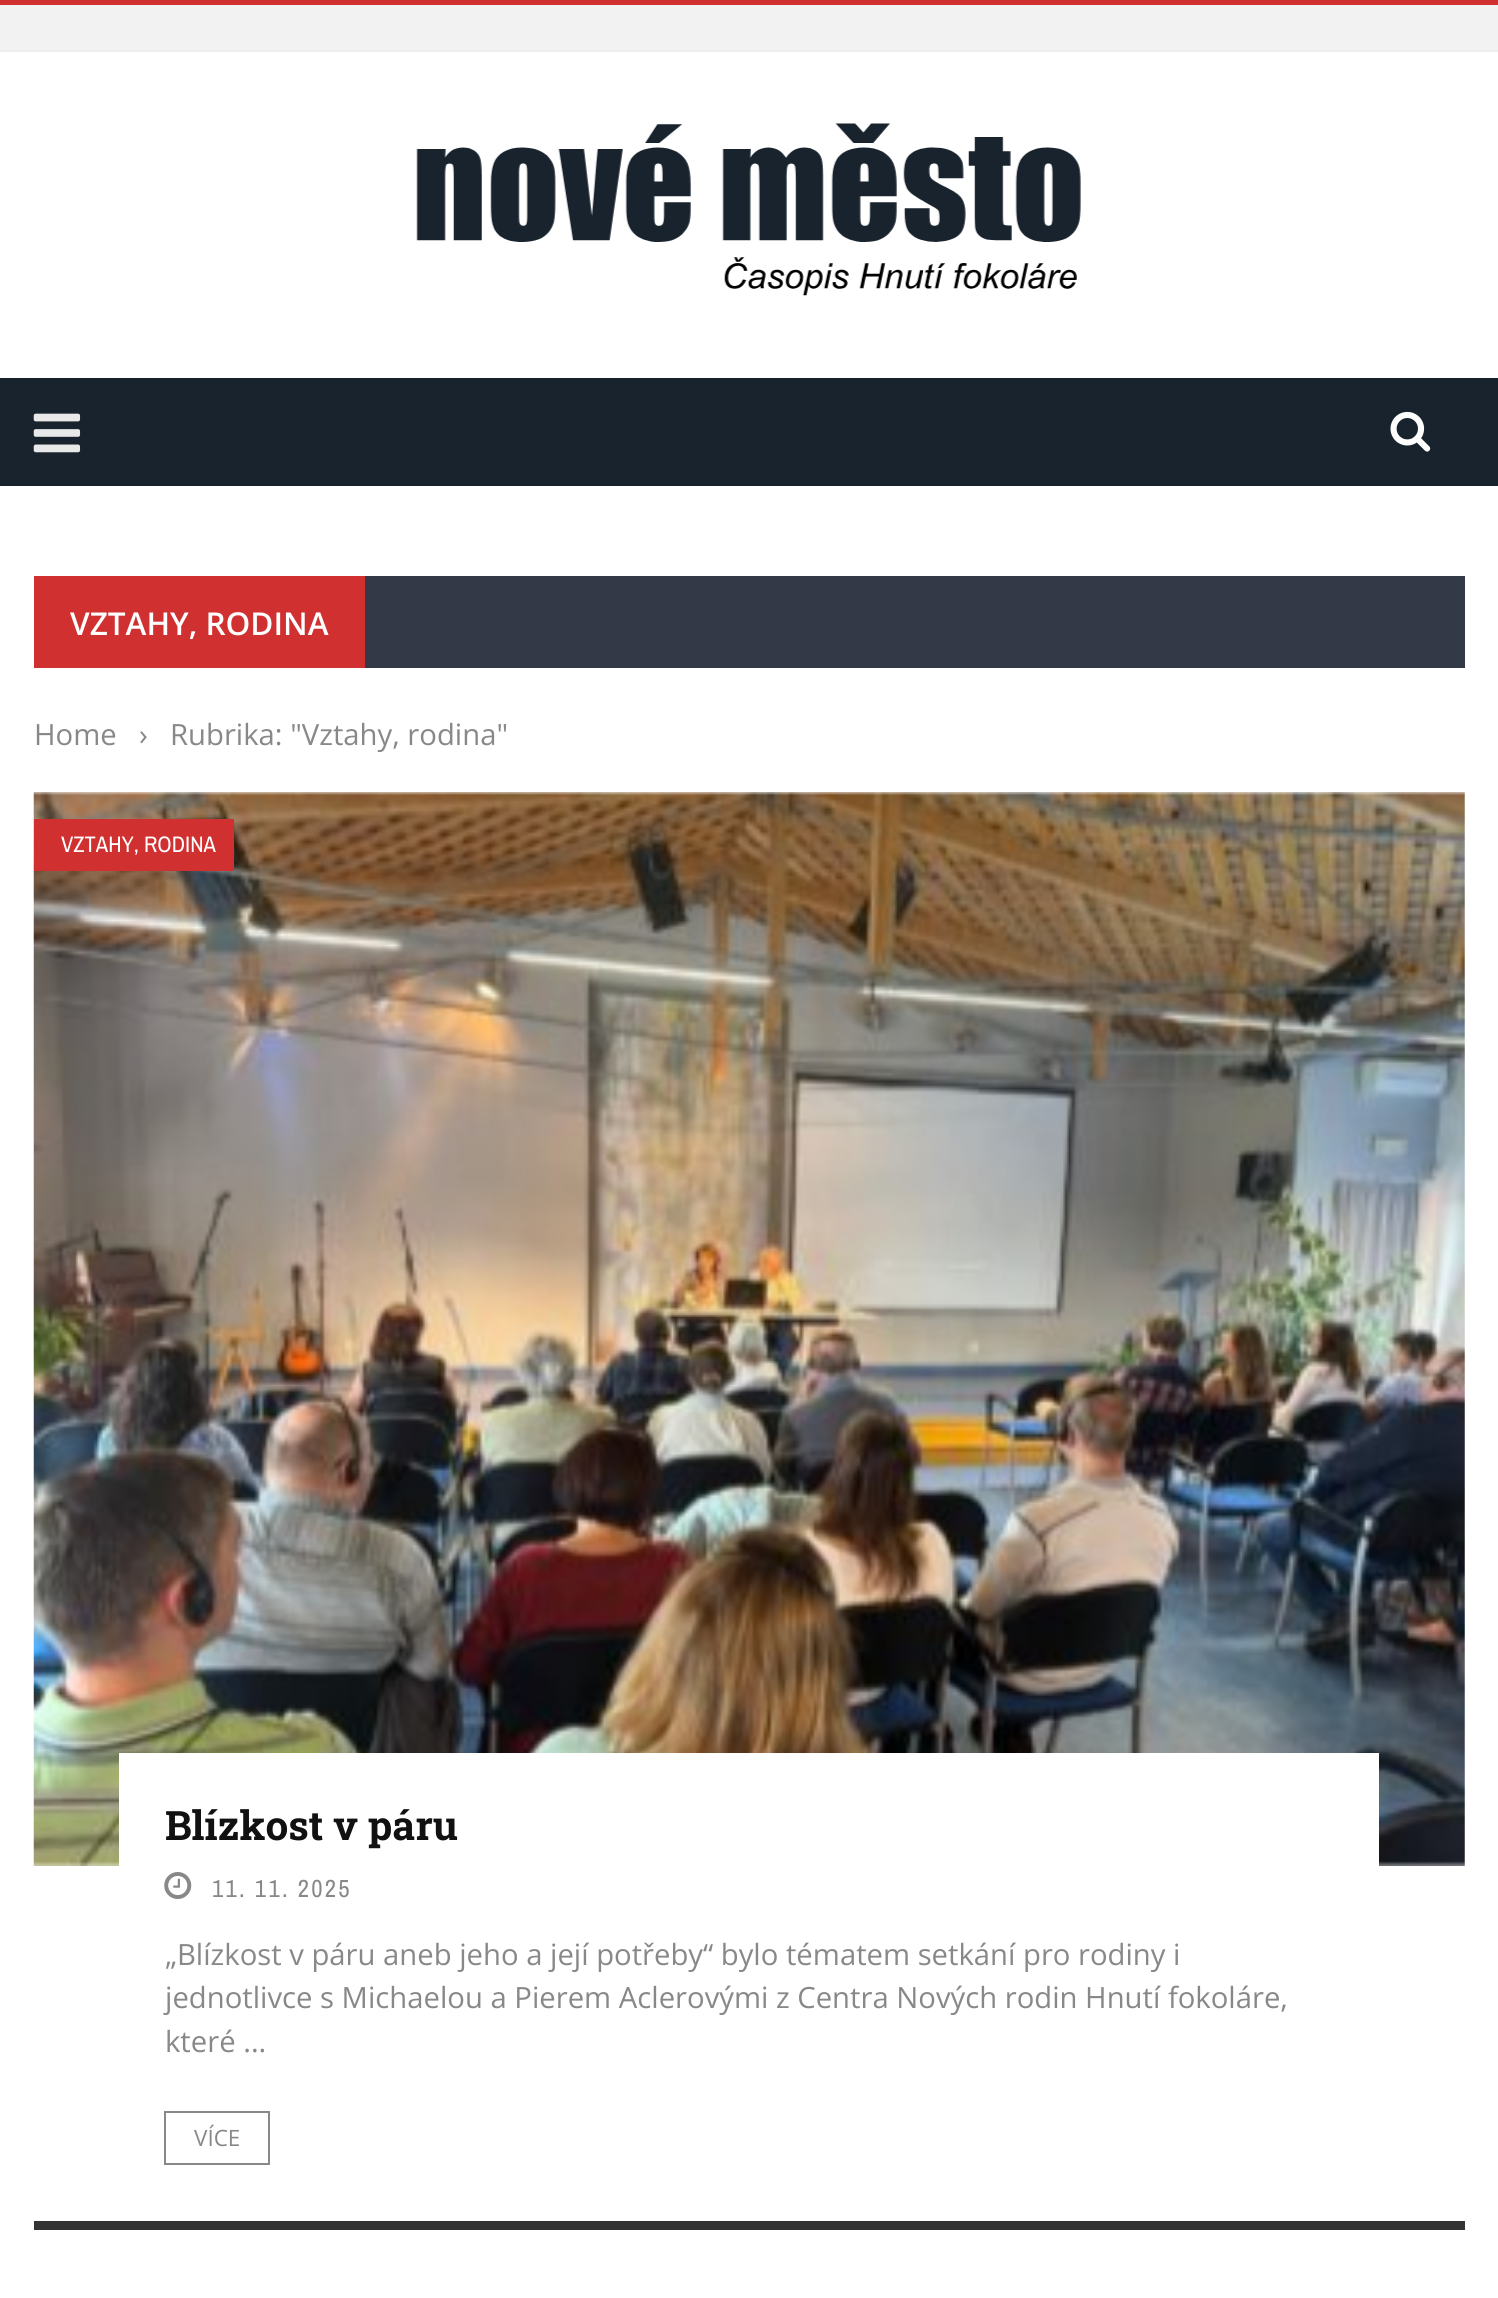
import math
import cairo

surface = cairo.ImageSurface(cairo.Format.RGB24, 1498, 2298)
ctx = cairo.Context(surface)
options = cairo.FontOptions()
options.set_hint_metrics(cairo.HintMetrics.OFF)
options.set_hint_style(cairo.HintStyle.NONE)
ctx.set_font_options(options)
ctx.set_miter_limit(4)


def ink(r, g, b):
    ctx.set_source_rgb(r / 255, g / 255, b / 255)


def write(x, y, s, family, size, color, bold=False, italic=False):
    ctx.select_font_face(family, cairo.FontSlant.ITALIC if italic else cairo.FontSlant.NORMAL, cairo.FontWeight.BOLD if bold else cairo.FontWeight.NORMAL)
    ctx.set_font_size(size)
    ink(*color)
    ctx.move_to(x, y)
    ctx.show_text(s)


def write_spaced(x, y, s, letter, word):
    ctx.move_to(x, y)
    for ch in s:
        ctx.show_text(ch)
        ctx.rel_move_to(letter + word * (ch == ' '), 0)


def block(x, y, w, h, *color):
    ink(*color)
    ctx.rectangle(x, y, w, h)
    ctx.fill()


def paste(path, x, y, w, h):
    ctx.save()
    ctx.set_source_surface(cairo.ImageSurface.create_from_png(path), x, y)
    ctx.rectangle(x, y, w, h)
    ctx.fill()
    ctx.restore()


s1 = dict(family="Open Sans SemiBold", size=31.5, color=(255, 255, 255))
s2 = dict(family="Open Sans", size=29.25, color=(136, 136, 136))
s3 = dict(family="Archivo Narrow", size=22.5, color=(255, 255, 255))
s4 = dict(family="Roboto Slab", size=40.5, color=(17, 17, 17), bold=True)
s5 = dict(family="Open Sans", size=22.5, color=(136, 136, 136))

ink(255, 255, 255)
ctx.paint()
block(0, 5, 1498, 45, 242, 242, 242)
block(0, 0, 1498, 5, 209, 48, 48)
block(0, 50, 1498, 2, 238, 238, 238)
paste("pic1.png", 416, 123, 665, 173)
block(0, 378, 1498, 108, 25, 35, 45)
paste("pic2.png", 33, 413, 48, 40)
paste("pic3.png", 1390, 411, 41, 41)
block(365, 576, 1100, 92, 51, 57, 70)
block(34, 576, 331, 92, 209, 48, 48)
write(70, 635, "VZTAHY, RODINA", **s1)
write(34, 745, "Home", **s2)
write(139, 745, "›", **s2)
write(170, 745, "Rubrika: \"Vztahy, rodina\"", **s2)
block(34, 2221, 1431, 9, 51, 51, 51)
paste("pic4.png", 33, 792, 1432, 1074)
block(34, 819, 200, 52, 209, 48, 48)
write(61, 852, "VZTAHY, RODINA", **s3)
block(119, 1753, 1260, 113, 255, 255, 255)
write(165, 1840, "Blízkost v páru", **s4)
paste("pic5.png", 164, 1872, 28, 27)
ctx.select_font_face("Archivo Narrow")
ctx.set_font_size(24.75)
ink(136, 136, 136)
write_spaced(212, 1897, "11. 11. 2025", 2.25, 0)
write(165, 1965, "„Blízkost v páru aneb jeho a její potřeby“ bylo tématem setkání pro rodiny i", **s2)
write(165, 2008, "jednotlivce s Michaelou a Pierem Aclerovými z Centra Nových rodin Hnutí fokoláre,", **s2)
write(165, 2052, "které ...", **s2)
ctx.rectangle(165, 2112, 104, 52)
ctx.stroke()
write(194, 2146, "VÍCE", **s5)
surface.write_to_png("screenshot.png")
